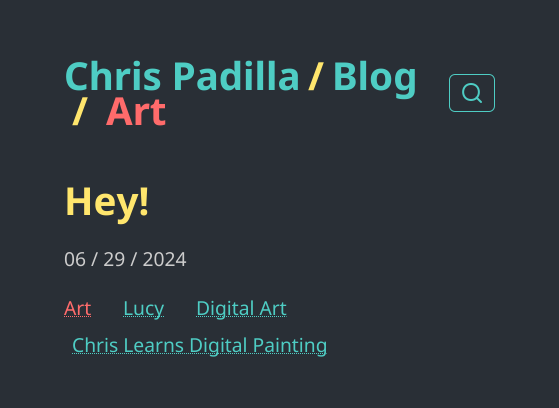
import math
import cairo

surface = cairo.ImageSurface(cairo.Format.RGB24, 559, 408)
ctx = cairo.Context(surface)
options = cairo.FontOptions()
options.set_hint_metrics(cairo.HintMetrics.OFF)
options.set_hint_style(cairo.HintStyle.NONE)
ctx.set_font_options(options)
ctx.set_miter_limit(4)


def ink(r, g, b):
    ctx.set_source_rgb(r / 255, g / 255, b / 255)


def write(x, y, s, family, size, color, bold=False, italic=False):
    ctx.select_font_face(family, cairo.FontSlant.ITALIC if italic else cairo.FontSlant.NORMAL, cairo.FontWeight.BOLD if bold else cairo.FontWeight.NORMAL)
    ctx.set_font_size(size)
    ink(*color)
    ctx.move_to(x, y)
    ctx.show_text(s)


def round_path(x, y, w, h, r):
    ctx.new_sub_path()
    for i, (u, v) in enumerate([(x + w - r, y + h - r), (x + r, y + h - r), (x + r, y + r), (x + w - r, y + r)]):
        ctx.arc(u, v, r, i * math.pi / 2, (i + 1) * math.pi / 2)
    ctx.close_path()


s1 = dict(family="Noto Sans", size=38.5, color=(78, 205, 196), bold=True)
s2 = dict(family="Noto Sans", size=38.5, color=(255, 230, 109), bold=True)
s3 = dict(family="Noto Sans", size=38.5, color=(255, 107, 107), bold=True)
s4 = dict(family="Noto Sans", size=19.25, color=(204, 204, 204))
s5 = dict(family="Noto Sans", size=19.25, color=(255, 107, 107))
s6 = dict(family="Noto Sans", size=19.25, color=(78, 205, 196))

ink(41, 47, 54)
ctx.paint()
write(64, 90, "Chris Padilla", **s1)
write(308, 90, "/", **s2)
write(332, 90, "Blog", **s1)
write(72, 125, "/", **s2)
write(106, 125, "Art", **s3)
round_path(449.5, 74.5, 45, 37, 5.5)
ink(78, 205, 196)
ctx.set_line_width(1)
ctx.stroke()
ctx.new_path()
ctx.move_to(471, 100)
ctx.curve_to(481.5, 100, 481.5, 84, 471, 84)
ctx.curve_to(460.5, 84, 460.5, 100, 471, 100)
ctx.close_path()
ctx.move_to(481, 102)
ctx.line_to(476.5, 97.5)
ctx.set_line_width(2)
ctx.set_line_cap(cairo.LineCap.ROUND)
ctx.set_line_join(cairo.LineJoin.ROUND)
ctx.stroke()
write(64, 215, "Hey!", **s2)
write(64, 266, "06 / 29 / 2024", **s4)
write(64, 315, "Art", **s5)
ctx.new_path()
ctx.move_to(64, 316.5)
ctx.line_to(91, 316.5)
ctx.set_line_width(1)
ctx.set_line_cap(cairo.LineCap.BUTT)
ctx.set_line_join(cairo.LineJoin.MITER)
ctx.set_dash([1, 1])
ctx.stroke()
ctx.new_path()
ctx.move_to(123, 316.5)
ctx.line_to(164, 316.5)
ink(78, 205, 196)
ctx.stroke()
write(123, 315, "Lucy", **s6)
ctx.new_path()
ctx.move_to(196, 316.5)
ctx.line_to(286.5, 316.5)
ctx.stroke()
write(196, 315, "Digital Art", **s6)
ctx.new_path()
ctx.move_to(72, 353.5)
ctx.line_to(326.5, 353.5)
ctx.stroke()
write(72, 352, "Chris Learns Digital Painting", **s6)
surface.write_to_png("screenshot.png")
